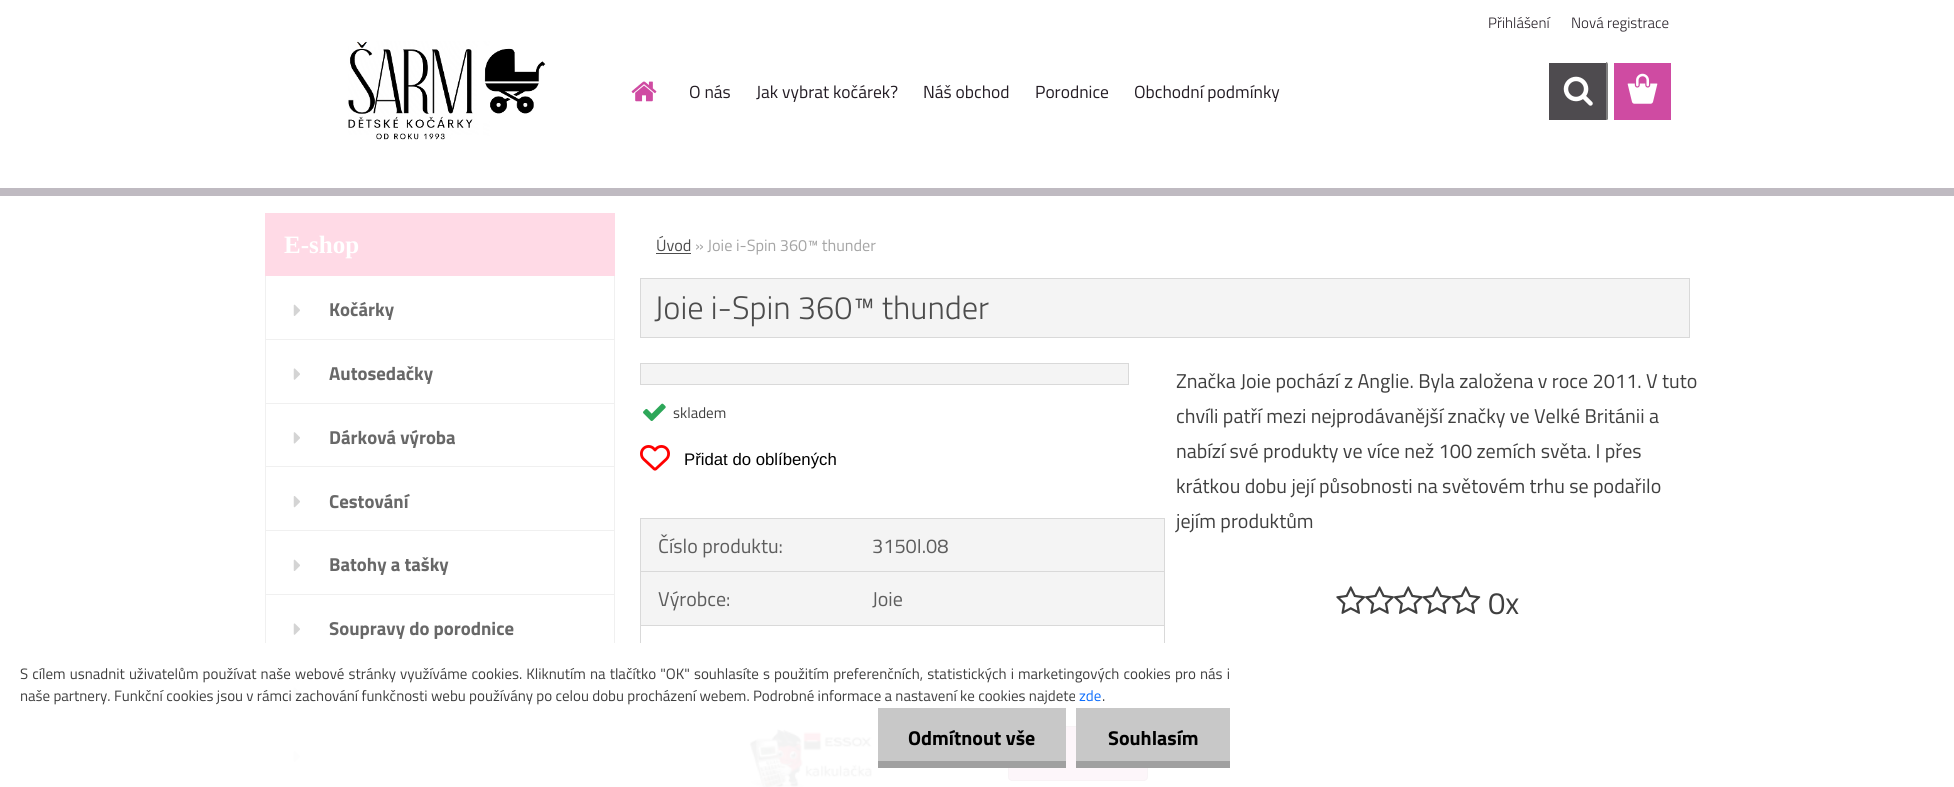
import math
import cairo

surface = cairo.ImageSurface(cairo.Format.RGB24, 1954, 787)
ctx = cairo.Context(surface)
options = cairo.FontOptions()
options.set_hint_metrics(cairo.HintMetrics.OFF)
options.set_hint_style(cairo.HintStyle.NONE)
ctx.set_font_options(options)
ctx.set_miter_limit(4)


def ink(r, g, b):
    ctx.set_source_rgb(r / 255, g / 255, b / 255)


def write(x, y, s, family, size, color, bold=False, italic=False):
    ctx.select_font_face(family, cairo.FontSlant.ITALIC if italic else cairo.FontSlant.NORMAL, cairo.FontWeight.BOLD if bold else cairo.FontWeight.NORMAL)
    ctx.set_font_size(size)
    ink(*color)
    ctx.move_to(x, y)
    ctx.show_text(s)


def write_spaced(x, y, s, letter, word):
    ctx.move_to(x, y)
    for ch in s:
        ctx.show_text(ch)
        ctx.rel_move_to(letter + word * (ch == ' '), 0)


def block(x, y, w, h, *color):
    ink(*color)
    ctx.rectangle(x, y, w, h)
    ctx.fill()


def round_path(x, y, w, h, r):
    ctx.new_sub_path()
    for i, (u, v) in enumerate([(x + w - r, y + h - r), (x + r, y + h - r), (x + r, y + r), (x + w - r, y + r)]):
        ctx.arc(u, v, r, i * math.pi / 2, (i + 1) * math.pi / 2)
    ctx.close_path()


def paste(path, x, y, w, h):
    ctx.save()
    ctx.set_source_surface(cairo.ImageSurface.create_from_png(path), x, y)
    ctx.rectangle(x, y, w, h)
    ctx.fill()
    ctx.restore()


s1 = dict(family="Titillium Web Light", size=15, color=(35, 28, 36))
s2 = dict(family="Liberation Serif", size=25, color=(255, 255, 255), bold=True)
s3 = dict(family="Titillium Web", size=18.75, color=(104, 104, 104), bold=True)
s4 = dict(family="Titillium Web", size=16.25, color=(76, 76, 76))
s5 = dict(family="Titillium Web", size=16.25, color=(165, 165, 165))
s6 = dict(family="Titillium Web Light", size=32.5, color=(76, 76, 76))
s7 = dict(family="Titillium Web", size=20, color=(63, 63, 63))
s8 = dict(family="Titillium Web", size=31, color=(63, 63, 63))
s9 = dict(family="Titillium Web", size=15, color=(63, 63, 63))
s10 = dict(family="Liberation Sans", size=16.75, color=(0, 0, 0))
s11 = dict(family="Titillium Web", size=20, color=(93, 93, 93))
s12 = dict(family="Titillium Web", size=17.5, color=(35, 28, 36))
s13 = dict(family="Titillium Web", size=15, color=(13, 110, 253))
s14 = dict(family="Titillium Web", size=20, color=(0, 0, 0), bold=True)

ink(255, 255, 255)
ctx.paint()
block(656, 253, 35, 1, 77, 77, 77)
write(1488, 28, "Přihlášení", **s1)
write(1571, 28, "Nová registrace", **s1)
block(1614, 63, 57, 57, 207, 75, 162)
paste("pic1.png", 1627, 73, 31, 31)
block(265, 213, 350, 63, 255, 218, 230)
write(284, 253, "E-shop", **s2)
block(614, 276, 1, 367, 240, 240, 240)
block(265, 339, 350, 1, 240, 240, 240)
block(265, 276, 1, 64, 240, 240, 240)
paste("pic2.png", 293, 304, 7, 12)
write(329, 316, "Kočárky", **s3)
block(265, 403, 350, 1, 240, 240, 240)
block(265, 340, 1, 64, 240, 240, 240)
paste("pic3.png", 293, 368, 7, 12)
write(329, 380, "Autosedačky", **s3)
block(265, 466, 350, 1, 240, 240, 240)
block(265, 404, 1, 64, 240, 240, 240)
paste("pic4.png", 293, 432, 7, 12)
write(329, 444, "Dárková výroba", **s3)
block(265, 530, 350, 1, 240, 240, 240)
block(265, 468, 1, 63, 240, 240, 240)
paste("pic5.png", 293, 496, 7, 12)
write(329, 508, "Cestování", **s3)
block(265, 594, 350, 1, 240, 240, 240)
block(265, 531, 1, 112, 240, 240, 240)
paste("pic2.png", 293, 559, 7, 12)
write(329, 571, "Batohy a tašky", **s3)
paste("pic3.png", 293, 623, 7, 12)
write(329, 635, "Soupravy do porodnice", **s3)
paste("pic6.png", 293, 687, 7, 12)
paste("pic7.png", 293, 751, 7, 12)
write(656, 251, "Úvod", **s4)
write(695, 251, "» Joie i-Spin 360™ thunder", **s5)
ink(244, 244, 244)
ctx.rectangle(640.5, 278.5, 1049, 59)
ctx.fill_preserve()
ink(217, 217, 217)
ctx.set_line_width(1)
ctx.stroke()
write(654, 319, "Joie i-Spin 360™ thunder", **s6)
ink(244, 244, 244)
ctx.rectangle(640.5, 363.5, 488, 21)
ctx.fill_preserve()
ink(217, 217, 217)
ctx.stroke()
write(1176, 388, "Značka Joie pochází z Anglie. Byla založena v roce 2011. V tuto", **s7)
write(1176, 423, "chvíli patří mezi nejprodávanější značky ve Velké Británii a", **s7)
write(1176, 458, "nabízí své produkty ve více než 100 zemích světa. I přes", **s7)
write(1176, 493, "krátkou dobu její působnosti na světovém trhu se podařilo", **s7)
write(1176, 528, "jejím produktům", **s7)
paste("pic8.png", 1336, 586, 30, 28)
paste("pic9.png", 1365, 586, 29, 28)
paste("pic10.png", 1393, 586, 30, 28)
paste("pic11.png", 1422, 586, 30, 28)
paste("pic12.png", 1451, 586, 30, 28)
write(1488, 614, "0x", **s8)
paste("pic13.png", 643, 403, 23, 18)
write(673, 418, "skladem", **s9)
paste("pic14.png", 640, 445, 30, 26)
write(684, 465, "Přidat do oblíbených", **s10)
block(640, 518, 525, 1, 217, 217, 217)
block(1164, 518, 1, 125, 217, 217, 217)
block(640, 518, 1, 125, 217, 217, 217)
block(641, 519, 523, 106, 244, 244, 244)
write(658, 553, "Číslo produktu:", **s11)
write(872, 553, "3150I.08", **s11)
block(640, 571, 525, 1, 217, 217, 217)
write(658, 606, "Výrobce:", **s11)
write(872, 606, "Joie", **s11)
block(640, 625, 525, 1, 217, 217, 217)
paste("pic15.png", 742, 726, 133, 61)
ink(253, 246, 250)
round_path(1008, 726, 140, 55, 4)
ctx.fill()
round_path(1008.5, 726.5, 139, 54, 3.5)
ctx.set_source_rgba(0.949, 0.949, 0.949, 0.44)
ctx.stroke()
block(0, 188, 1954, 8, 191, 186, 193)
paste("pic16.png", 348, 41, 198, 99)
paste("pic17.png", 631, 81, 26, 21)
write(689, 98, "O nás", **s12)
write(756, 98, "Jak vybrat kočárek?", **s12)
write(923, 98, "Náš obchod", **s12)
write(1035, 98, "Porodnice", **s12)
write(1134, 98, "Obchodní podmínky", **s12)
block(1549, 63, 57, 57, 78, 75, 79)
paste("pic18.png", 1563, 76, 30, 30)
ink(128, 128, 128)
ctx.new_path()
ctx.move_to(1606, 62.5)
ctx.line_to(1607.5, 62.5)
ctx.line_to(1607.5, 64)
ctx.close_path()
ctx.move_to(1607.5, 120)
ctx.line_to(1606, 120)
ctx.line_to(1607.5, 119)
ctx.close_path()
ctx.fill()
ctx.set_source_rgba(0, 0, 0, 0.5)
ctx.new_path()
ctx.move_to(1606, 120)
ctx.line_to(1606, 62)
ctx.line_to(1608, 64)
ctx.line_to(1608, 119)
ctx.close_path()
ctx.fill()
ctx.set_font_size(15)
ink(63, 63, 63)
write_spaced(20, 679, "S cílem usnadnit uživatelům používat naše webové stránky využíváme cookies. Kliknutím na tlačítko \"OK\" souhlasíte s použitím preferenčních, statistických i marketingových cookies pro nás i", 0, 0.8)
write(20, 701, "naše partnery. Funkční cookies jsou v rámci zachování funkčnosti webu používány po celou dobu procházení webem. Podrobné informace a nastavení ke cookies najdete", **s9)
write(1079, 701, "zde", **s13)
write(1102, 701, ".", **s9)
block(878, 708, 188, 53, 200, 200, 200)
block(878, 761, 188, 7, 160, 160, 160)
write(908, 745, "Odmítnout vše", **s14)
block(1076, 708, 154, 53, 200, 200, 200)
block(1076, 761, 154, 7, 160, 160, 160)
write(1108, 745, "Souhlasím", **s14)
surface.write_to_png("screenshot.png")
